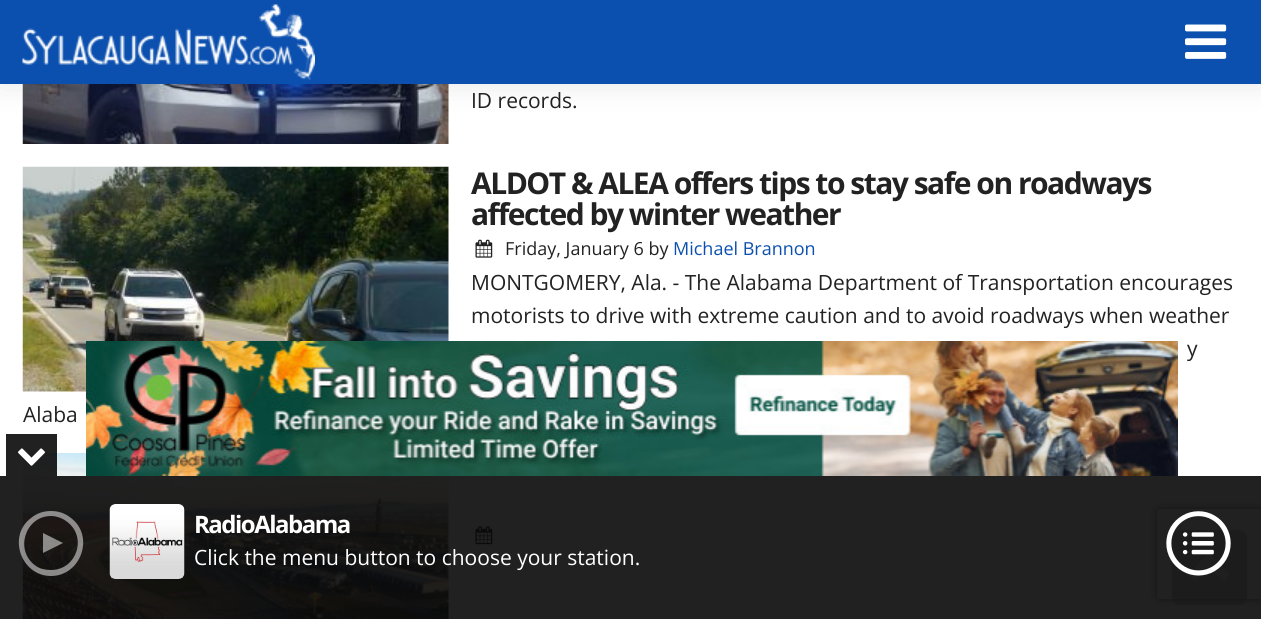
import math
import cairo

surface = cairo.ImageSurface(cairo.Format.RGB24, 1261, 619)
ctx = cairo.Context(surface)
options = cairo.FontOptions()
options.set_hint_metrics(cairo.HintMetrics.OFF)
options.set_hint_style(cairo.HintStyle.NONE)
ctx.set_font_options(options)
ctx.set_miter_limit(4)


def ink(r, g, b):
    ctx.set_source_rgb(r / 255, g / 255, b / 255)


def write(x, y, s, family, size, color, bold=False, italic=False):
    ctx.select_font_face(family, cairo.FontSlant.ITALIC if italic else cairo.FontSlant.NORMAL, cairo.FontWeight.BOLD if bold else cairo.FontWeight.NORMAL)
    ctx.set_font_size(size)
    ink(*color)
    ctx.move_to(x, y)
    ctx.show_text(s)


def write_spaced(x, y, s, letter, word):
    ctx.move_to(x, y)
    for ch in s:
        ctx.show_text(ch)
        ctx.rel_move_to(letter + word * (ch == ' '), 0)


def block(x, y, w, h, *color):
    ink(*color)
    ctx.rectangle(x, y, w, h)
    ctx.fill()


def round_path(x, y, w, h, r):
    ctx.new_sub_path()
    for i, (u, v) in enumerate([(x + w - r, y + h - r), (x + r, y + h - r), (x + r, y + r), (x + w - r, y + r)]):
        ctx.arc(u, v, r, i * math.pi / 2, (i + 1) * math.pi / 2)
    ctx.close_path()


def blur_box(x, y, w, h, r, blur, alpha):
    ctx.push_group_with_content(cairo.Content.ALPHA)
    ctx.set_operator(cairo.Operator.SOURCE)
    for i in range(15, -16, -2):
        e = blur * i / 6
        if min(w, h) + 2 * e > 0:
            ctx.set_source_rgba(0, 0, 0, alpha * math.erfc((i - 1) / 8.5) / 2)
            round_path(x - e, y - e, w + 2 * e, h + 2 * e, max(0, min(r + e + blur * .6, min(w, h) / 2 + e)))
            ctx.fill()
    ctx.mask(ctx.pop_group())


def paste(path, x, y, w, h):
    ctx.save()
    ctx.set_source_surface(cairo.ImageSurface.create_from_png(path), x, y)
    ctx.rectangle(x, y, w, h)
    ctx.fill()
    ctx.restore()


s1 = dict(family="Open Sans", size=21, color=(34, 34, 34))
s2 = dict(family="Open Sans", size=18, color=(34, 34, 34))
s3 = dict(family="Open Sans", size=18, color=(12, 80, 175))
s4 = dict(family="Open Sans", size=21, color=(255, 255, 255))

ink(255, 255, 255)
ctx.paint()
paste("pic3.png", 22, 84, 427, 60)
ink(0, 0, 0)
blur_box(0, 0, 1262, 84, 0, 15, 0.1)
block(0, 0, 1261, 84, 12, 80, 175)
paste("pic1.png", 22, 4, 293, 76)
paste("pic2.png", 1185, 24, 42, 35)
write(471, 108, "ID records.", **s1)
paste("pic4.png", 22, 166, 427, 226)
ctx.select_font_face("Open Sans", cairo.FontSlant.NORMAL, cairo.FontWeight.BOLD)
ctx.set_font_size(30)
write_spaced(471, 194, "ALDOT & ALEA offers tips to stay safe on roadways", -1.5, 0)
write_spaced(471, 225, "affected by winter weather", -1.5, 0)
paste("pic5.png", 475, 239, 18, 19)
write(505, 255, "Friday, January 6 by", **s2)
write(673, 255, "Michael Brannon", **s3)
write(471, 290, "MONTGOMERY, Ala. - The Alabama Department of Transportation encourages", **s1)
write(471, 323, "motorists to drive with extreme caution and to avoid roadways when weather", **s1)
write(1187, 356, "y", **s1)
write(23, 422, "Alaba", **s1)
paste("pic6.png", 22, 453, 427, 166)
paste("pic7.png", 475, 526, 18, 19)
ctx.set_source_rgba(0, 0, 0, 0.18)
round_path(1172, 530, 75, 75, 8)
ctx.fill()
paste("pic8.png", 1188, 554, 42, 27)
ctx.save()
ctx.set_fill_rule(cairo.FillRule.EVEN_ODD)
ctx.new_path()
ctx.move_to(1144, 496)
ctx.line_to(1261, 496)
ctx.line_to(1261, 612)
ctx.line_to(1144, 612)
ctx.close_path()
ctx.move_to(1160, 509)
ctx.line_to(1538, 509)
ctx.curve_to(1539.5, 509, 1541, 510.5, 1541, 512)
ctx.line_to(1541, 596)
ctx.curve_to(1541, 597.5, 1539.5, 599, 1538, 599)
ctx.line_to(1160, 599)
ctx.curve_to(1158.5, 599, 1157, 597.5, 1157, 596)
ctx.line_to(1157, 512)
ctx.curve_to(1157, 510.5, 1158.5, 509, 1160, 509)
ctx.close_path()
ctx.clip()
ink(128, 128, 128)
blur_box(1157, 509, 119, 90, 3, 4, 1)
ctx.restore()
ctx.set_source_rgba(0.039, 0.039, 0.039, 0.9)
ctx.rectangle(0, 476, 1261, 143)
ctx.fill()
ctx.rectangle(6, 434, 51, 42)
ctx.fill()
paste("pic9.png", 18, 448, 27, 18)
paste("pic10.png", 86, 341, 1092, 135)
ctx.set_source_rgba(1, 1, 1, 0.5)
ctx.new_path()
ctx.move_to(51, 511)
ctx.curve_to(44, 511, 37, 513, 31, 518)
ctx.curve_to(7, 536, 21, 576, 51, 576)
ctx.curve_to(81, 576, 95, 536, 71, 518)
ctx.curve_to(65, 513, 58, 511, 51, 511)
ctx.close_path()
ctx.move_to(51, 570)
ctx.curve_to(46, 570, 40, 569, 36, 566)
ctx.curve_to(14, 551, 25, 516, 51, 516)
ctx.curve_to(56, 516, 62, 518, 66, 521)
ctx.curve_to(88, 536, 77, 570, 51, 570)
ctx.close_path()
ctx.move_to(43, 553)
ctx.line_to(63, 543)
ctx.line_to(43, 533)
ctx.close_path()
ctx.fill()
paste("pic11.png", 109, 504, 76, 75)
ctx.select_font_face("Open Sans", cairo.FontSlant.NORMAL, cairo.FontWeight.BOLD)
ctx.set_font_size(24)
ink(255, 255, 255)
write_spaced(194, 533, "RadioAlabama", -1.5, 0)
write(194, 565, "Click the menu button to choose your station.", **s4)
paste("pic12.png", 1166, 511, 65, 65)
surface.write_to_png("screenshot.png")
